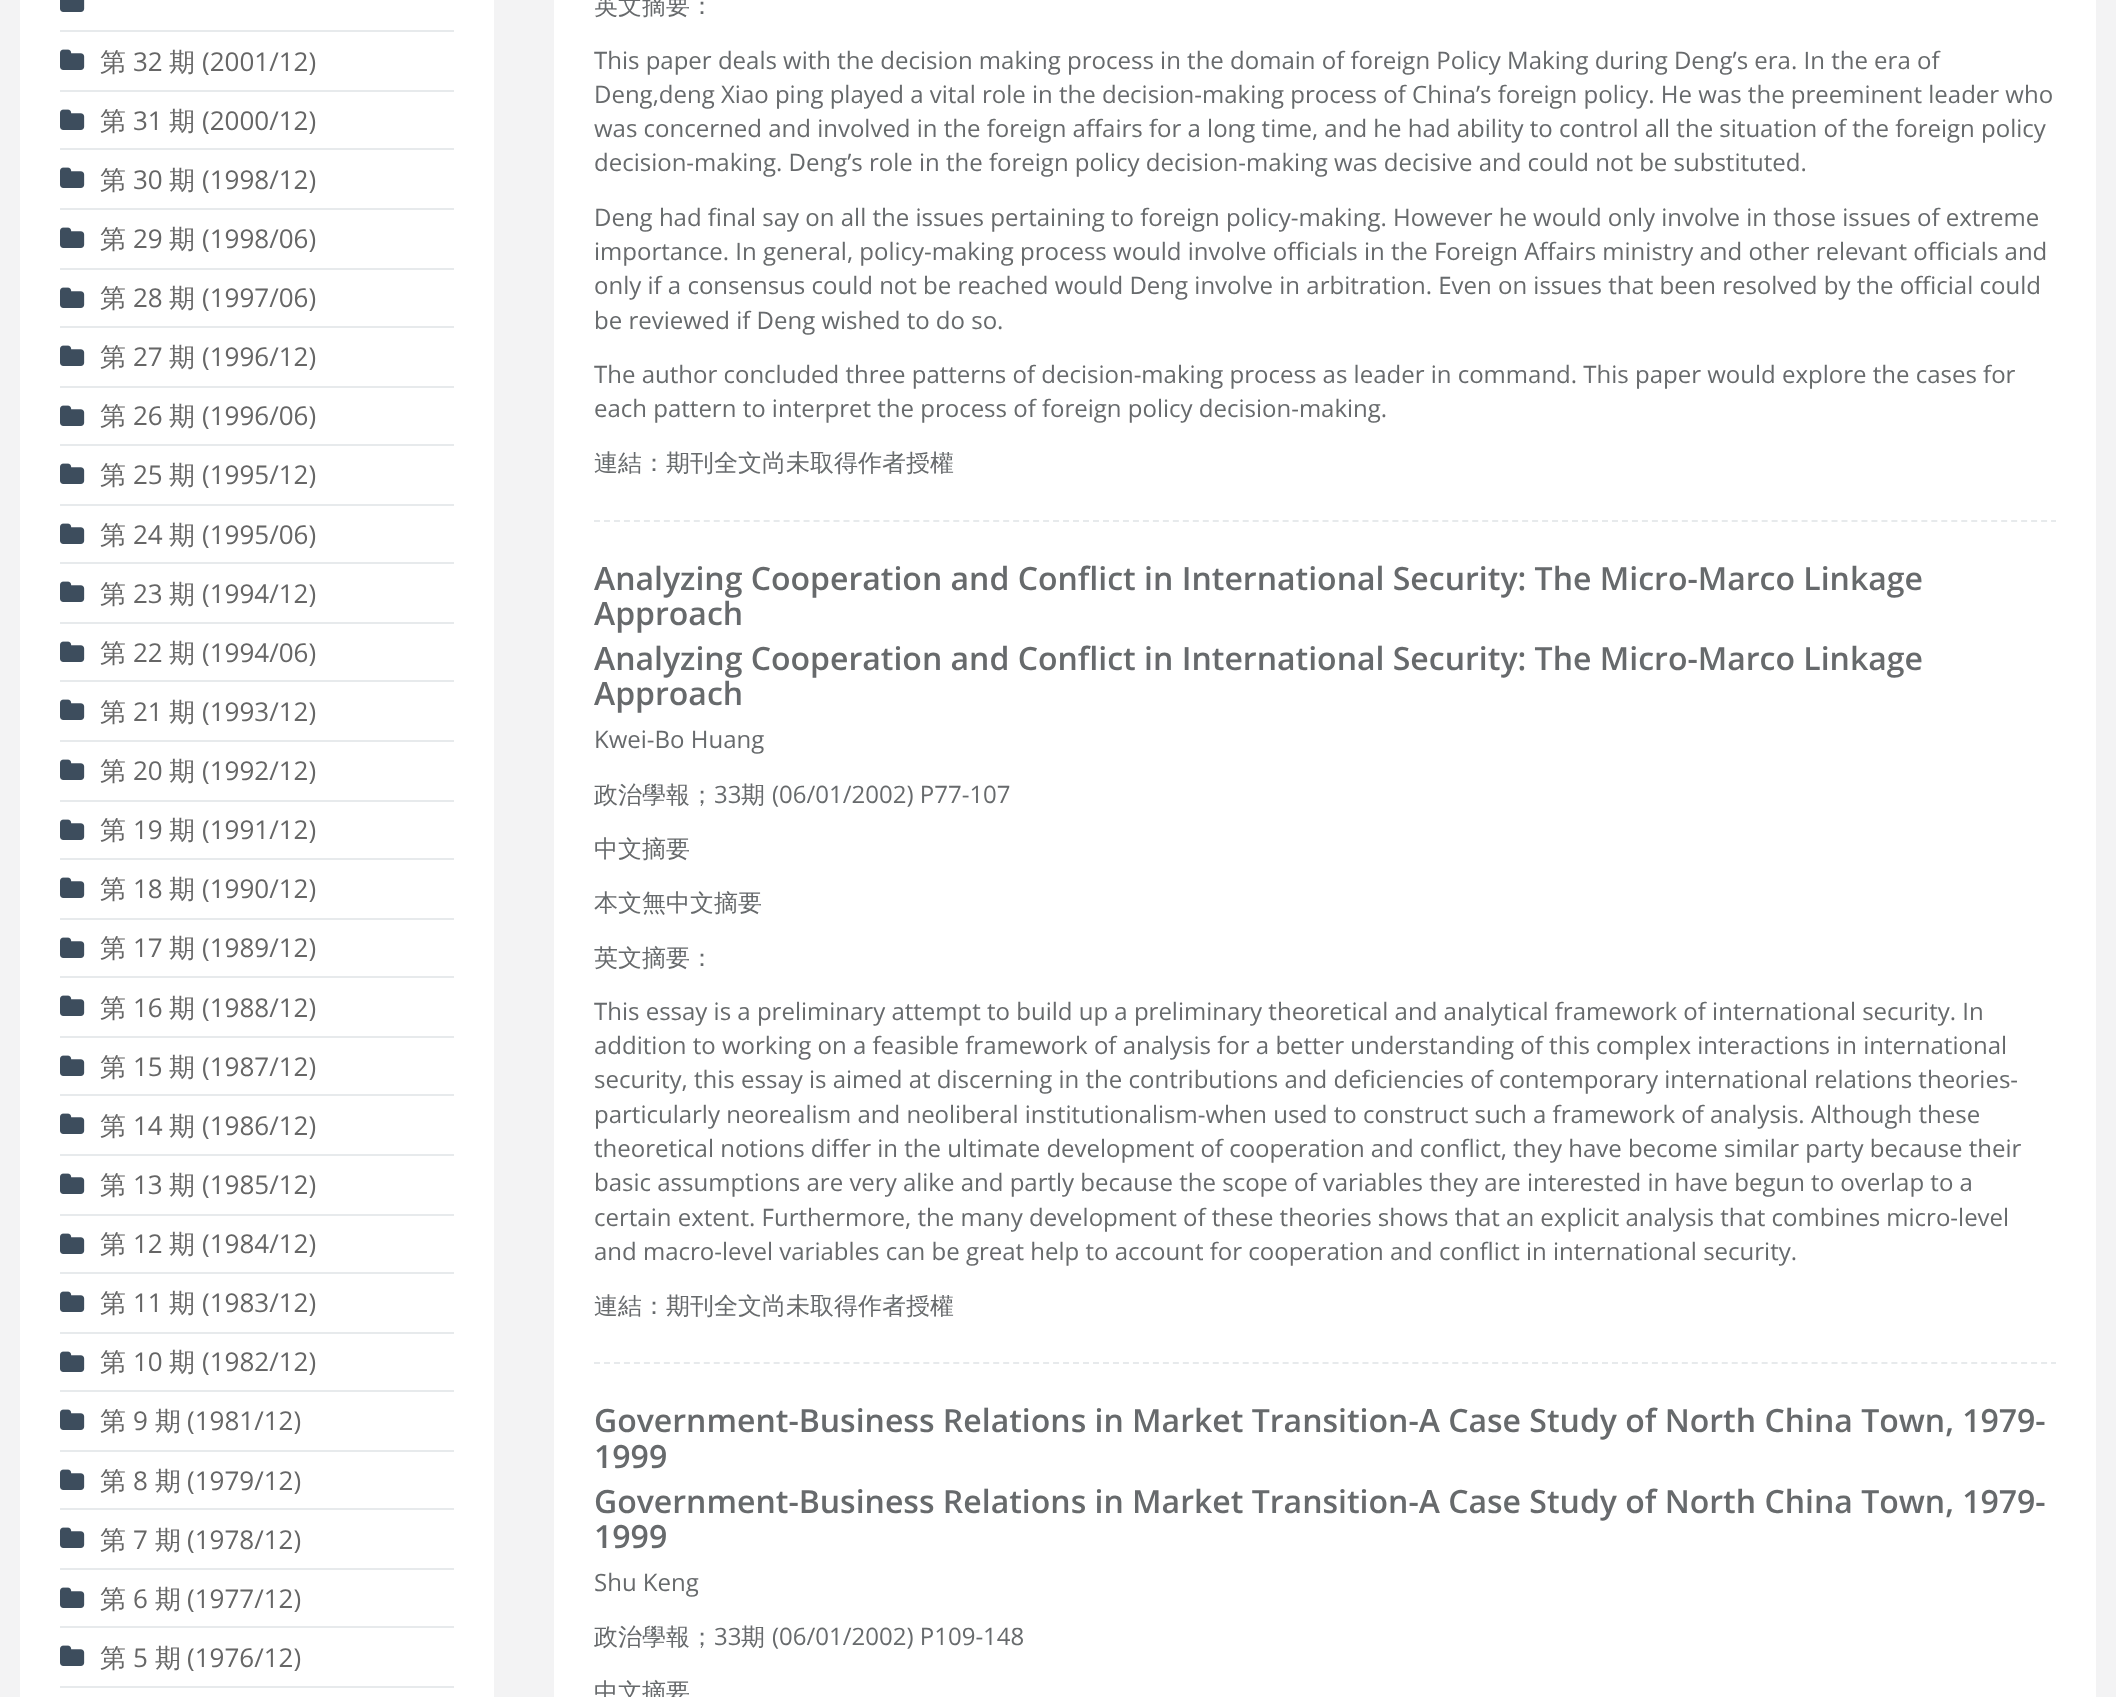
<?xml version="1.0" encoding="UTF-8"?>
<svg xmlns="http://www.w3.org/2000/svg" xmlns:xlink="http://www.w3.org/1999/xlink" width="2116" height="1697">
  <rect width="100%" height="100%" fill="#f3f3f4" />
  <rect x="20" width="474" height="1697" fill="#ffffff" />
  <rect x="60" y="30" width="394" height="2" fill="#e7eaec" />
  <image x="60" y="0" width="25" height="12" xlink:href="image1.png" />
  <rect x="60" y="90" width="394" height="2" fill="#e7eaec" />
  <image x="60" y="49" width="25" height="21" xlink:href="image2.png" />
  <rect x="60" y="148" width="394" height="2" fill="#e7eaec" />
  <image x="60" y="109" width="25" height="21" xlink:href="image2.png" />
  <rect x="60" y="208" width="394" height="2" fill="#e7eaec" />
  <image x="60" y="167" width="25" height="21" xlink:href="image2.png" />
  <rect x="60" y="268" width="394" height="2" fill="#e7eaec" />
  <image x="60" y="227" width="25" height="21" xlink:href="image2.png" />
  <rect x="60" y="326" width="394" height="2" fill="#e7eaec" />
  <image x="60" y="287" width="25" height="21" xlink:href="image2.png" />
  <rect x="60" y="386" width="394" height="2" fill="#e7eaec" />
  <image x="60" y="345" width="25" height="21" xlink:href="image2.png" />
  <rect x="60" y="444" width="394" height="2" fill="#e7eaec" />
  <image x="60" y="405" width="25" height="21" xlink:href="image2.png" />
  <rect x="60" y="504" width="394" height="2" fill="#e7eaec" />
  <image x="60" y="463" width="25" height="21" xlink:href="image2.png" />
  <rect x="60" y="562" width="394" height="2" fill="#e7eaec" />
  <image x="60" y="523" width="25" height="21" xlink:href="image2.png" />
  <rect x="60" y="622" width="394" height="2" fill="#e7eaec" />
  <image x="60" y="581" width="25" height="21" xlink:href="image2.png" />
  <rect x="60" y="680" width="394" height="2" fill="#e7eaec" />
  <image x="60" y="641" width="25" height="21" xlink:href="image2.png" />
  <rect x="60" y="740" width="394" height="2" fill="#e7eaec" />
  <image x="60" y="699" width="25" height="21" xlink:href="image2.png" />
  <rect x="60" y="800" width="394" height="2" fill="#e7eaec" />
  <image x="60" y="759" width="25" height="21" xlink:href="image2.png" />
  <rect x="60" y="858" width="394" height="2" fill="#e7eaec" />
  <image x="60" y="819" width="25" height="21" xlink:href="image2.png" />
  <rect x="60" y="918" width="394" height="2" fill="#e7eaec" />
  <image x="60" y="877" width="25" height="21" xlink:href="image2.png" />
  <rect x="60" y="976" width="394" height="2" fill="#e7eaec" />
  <image x="60" y="937" width="25" height="21" xlink:href="image2.png" />
  <rect x="60" y="1036" width="394" height="2" fill="#e7eaec" />
  <image x="60" y="995" width="25" height="21" xlink:href="image2.png" />
  <rect x="60" y="1094" width="394" height="2" fill="#e7eaec" />
  <image x="60" y="1055" width="25" height="21" xlink:href="image2.png" />
  <rect x="60" y="1154" width="394" height="2" fill="#e7eaec" />
  <image x="60" y="1113" width="25" height="21" xlink:href="image2.png" />
  <rect x="60" y="1214" width="394" height="2" fill="#e7eaec" />
  <image x="60" y="1173" width="25" height="21" xlink:href="image2.png" />
  <rect x="60" y="1272" width="394" height="2" fill="#e7eaec" />
  <image x="60" y="1233" width="25" height="21" xlink:href="image2.png" />
  <rect x="60" y="1332" width="394" height="2" fill="#e7eaec" />
  <image x="60" y="1291" width="25" height="21" xlink:href="image2.png" />
  <rect x="60" y="1390" width="394" height="2" fill="#e7eaec" />
  <image x="60" y="1351" width="25" height="21" xlink:href="image2.png" />
  <rect x="60" y="1450" width="394" height="2" fill="#e7eaec" />
  <image x="60" y="1409" width="25" height="21" xlink:href="image2.png" />
  <rect x="60" y="1508" width="394" height="2" fill="#e7eaec" />
  <image x="60" y="1469" width="25" height="21" xlink:href="image2.png" />
  <rect x="60" y="1568" width="394" height="2" fill="#e7eaec" />
  <image x="60" y="1527" width="25" height="21" xlink:href="image2.png" />
  <rect x="60" y="1626" width="394" height="2" fill="#e7eaec" />
  <image x="60" y="1587" width="25" height="21" xlink:href="image2.png" />
  <rect x="60" y="1686" width="394" height="2" fill="#e7eaec" />
  <image x="60" y="1645" width="25" height="21" xlink:href="image2.png" />
  <rect x="554" width="1542" height="1697" fill="#ffffff" />
  <path d="M 594 521 h 1462" fill="none" stroke="#e7eaec" stroke-width="2" stroke-dasharray="6 3.98" />
  <path d="M 594 1363 h 1462" fill="none" stroke="#e7eaec" stroke-width="2" stroke-dasharray="6 3.98" />
  <text x="100" y="71" style="font-family: WenQuanYi Zen Hei; font-size: 26px; font-weight: 500; fill: #666666">第</text>
  <text x="133" y="71" style="font-family: Open Sans; font-size: 26px; fill: #666666">32</text>
  <text x="169" y="71" style="font-family: WenQuanYi Zen Hei; font-size: 26px; font-weight: 500; fill: #666666">期</text>
  <text x="202" y="71" style="font-family: Open Sans; font-size: 26px; fill: #666666">(2001/12)</text>
  <text x="100" y="130" style="font-family: WenQuanYi Zen Hei; font-size: 26px; font-weight: 500; fill: #666666">第</text>
  <text x="133" y="130" style="font-family: Open Sans; font-size: 26px; fill: #666666">31</text>
  <text x="169" y="130" style="font-family: WenQuanYi Zen Hei; font-size: 26px; font-weight: 500; fill: #666666">期</text>
  <text x="202" y="130" style="font-family: Open Sans; font-size: 26px; fill: #666666">(2000/12)</text>
  <text x="100" y="189" style="font-family: WenQuanYi Zen Hei; font-size: 26px; font-weight: 500; fill: #666666">第</text>
  <text x="133" y="189" style="font-family: Open Sans; font-size: 26px; fill: #666666">30</text>
  <text x="169" y="189" style="font-family: WenQuanYi Zen Hei; font-size: 26px; font-weight: 500; fill: #666666">期</text>
  <text x="202" y="189" style="font-family: Open Sans; font-size: 26px; fill: #666666">(1998/12)</text>
  <text x="100" y="248" style="font-family: WenQuanYi Zen Hei; font-size: 26px; font-weight: 500; fill: #666666">第</text>
  <text x="133" y="248" style="font-family: Open Sans; font-size: 26px; fill: #666666">29</text>
  <text x="169" y="248" style="font-family: WenQuanYi Zen Hei; font-size: 26px; font-weight: 500; fill: #666666">期</text>
  <text x="202" y="248" style="font-family: Open Sans; font-size: 26px; fill: #666666">(1998/06)</text>
  <text x="100" y="307" style="font-family: WenQuanYi Zen Hei; font-size: 26px; font-weight: 500; fill: #666666">第</text>
  <text x="133" y="307" style="font-family: Open Sans; font-size: 26px; fill: #666666">28</text>
  <text x="169" y="307" style="font-family: WenQuanYi Zen Hei; font-size: 26px; font-weight: 500; fill: #666666">期</text>
  <text x="202" y="307" style="font-family: Open Sans; font-size: 26px; fill: #666666">(1997/06)</text>
  <text x="100" y="366" style="font-family: WenQuanYi Zen Hei; font-size: 26px; font-weight: 500; fill: #666666">第</text>
  <text x="133" y="366" style="font-family: Open Sans; font-size: 26px; fill: #666666">27</text>
  <text x="169" y="366" style="font-family: WenQuanYi Zen Hei; font-size: 26px; font-weight: 500; fill: #666666">期</text>
  <text x="202" y="366" style="font-family: Open Sans; font-size: 26px; fill: #666666">(1996/12)</text>
  <text x="100" y="425" style="font-family: WenQuanYi Zen Hei; font-size: 26px; font-weight: 500; fill: #666666">第</text>
  <text x="133" y="425" style="font-family: Open Sans; font-size: 26px; fill: #666666">26</text>
  <text x="169" y="425" style="font-family: WenQuanYi Zen Hei; font-size: 26px; font-weight: 500; fill: #666666">期</text>
  <text x="202" y="425" style="font-family: Open Sans; font-size: 26px; fill: #666666">(1996/06)</text>
  <text x="100" y="484" style="font-family: WenQuanYi Zen Hei; font-size: 26px; font-weight: 500; fill: #666666">第</text>
  <text x="133" y="484" style="font-family: Open Sans; font-size: 26px; fill: #666666">25</text>
  <text x="169" y="484" style="font-family: WenQuanYi Zen Hei; font-size: 26px; font-weight: 500; fill: #666666">期</text>
  <text x="202" y="484" style="font-family: Open Sans; font-size: 26px; fill: #666666">(1995/12)</text>
  <text x="100" y="544" style="font-family: WenQuanYi Zen Hei; font-size: 26px; font-weight: 500; fill: #666666">第</text>
  <text x="133" y="544" style="font-family: Open Sans; font-size: 26px; fill: #666666">24</text>
  <text x="169" y="544" style="font-family: WenQuanYi Zen Hei; font-size: 26px; font-weight: 500; fill: #666666">期</text>
  <text x="202" y="544" style="font-family: Open Sans; font-size: 26px; fill: #666666">(1995/06)</text>
  <text x="100" y="603" style="font-family: WenQuanYi Zen Hei; font-size: 26px; font-weight: 500; fill: #666666">第</text>
  <text x="133" y="603" style="font-family: Open Sans; font-size: 26px; fill: #666666">23</text>
  <text x="169" y="603" style="font-family: WenQuanYi Zen Hei; font-size: 26px; font-weight: 500; fill: #666666">期</text>
  <text x="202" y="603" style="font-family: Open Sans; font-size: 26px; fill: #666666">(1994/12)</text>
  <text x="100" y="662" style="font-family: WenQuanYi Zen Hei; font-size: 26px; font-weight: 500; fill: #666666">第</text>
  <text x="133" y="662" style="font-family: Open Sans; font-size: 26px; fill: #666666">22</text>
  <text x="169" y="662" style="font-family: WenQuanYi Zen Hei; font-size: 26px; font-weight: 500; fill: #666666">期</text>
  <text x="202" y="662" style="font-family: Open Sans; font-size: 26px; fill: #666666">(1994/06)</text>
  <text x="100" y="721" style="font-family: WenQuanYi Zen Hei; font-size: 26px; font-weight: 500; fill: #666666">第</text>
  <text x="133" y="721" style="font-family: Open Sans; font-size: 26px; fill: #666666">21</text>
  <text x="169" y="721" style="font-family: WenQuanYi Zen Hei; font-size: 26px; font-weight: 500; fill: #666666">期</text>
  <text x="202" y="721" style="font-family: Open Sans; font-size: 26px; fill: #666666">(1993/12)</text>
  <text x="100" y="780" style="font-family: WenQuanYi Zen Hei; font-size: 26px; font-weight: 500; fill: #666666">第</text>
  <text x="133" y="780" style="font-family: Open Sans; font-size: 26px; fill: #666666">20</text>
  <text x="169" y="780" style="font-family: WenQuanYi Zen Hei; font-size: 26px; font-weight: 500; fill: #666666">期</text>
  <text x="202" y="780" style="font-family: Open Sans; font-size: 26px; fill: #666666">(1992/12)</text>
  <text x="100" y="839" style="font-family: WenQuanYi Zen Hei; font-size: 26px; font-weight: 500; fill: #666666">第</text>
  <text x="133" y="839" style="font-family: Open Sans; font-size: 26px; fill: #666666">19</text>
  <text x="169" y="839" style="font-family: WenQuanYi Zen Hei; font-size: 26px; font-weight: 500; fill: #666666">期</text>
  <text x="202" y="839" style="font-family: Open Sans; font-size: 26px; fill: #666666">(1991/12)</text>
  <text x="100" y="898" style="font-family: WenQuanYi Zen Hei; font-size: 26px; font-weight: 500; fill: #666666">第</text>
  <text x="133" y="898" style="font-family: Open Sans; font-size: 26px; fill: #666666">18</text>
  <text x="169" y="898" style="font-family: WenQuanYi Zen Hei; font-size: 26px; font-weight: 500; fill: #666666">期</text>
  <text x="202" y="898" style="font-family: Open Sans; font-size: 26px; fill: #666666">(1990/12)</text>
  <text x="100" y="957" style="font-family: WenQuanYi Zen Hei; font-size: 26px; font-weight: 500; fill: #666666">第</text>
  <text x="133" y="957" style="font-family: Open Sans; font-size: 26px; fill: #666666">17</text>
  <text x="169" y="957" style="font-family: WenQuanYi Zen Hei; font-size: 26px; font-weight: 500; fill: #666666">期</text>
  <text x="202" y="957" style="font-family: Open Sans; font-size: 26px; fill: #666666">(1989/12)</text>
  <text x="100" y="1017" style="font-family: WenQuanYi Zen Hei; font-size: 26px; font-weight: 500; fill: #666666">第</text>
  <text x="133" y="1017" style="font-family: Open Sans; font-size: 26px; fill: #666666">16</text>
  <text x="169" y="1017" style="font-family: WenQuanYi Zen Hei; font-size: 26px; font-weight: 500; fill: #666666">期</text>
  <text x="202" y="1017" style="font-family: Open Sans; font-size: 26px; fill: #666666">(1988/12)</text>
  <text x="100" y="1076" style="font-family: WenQuanYi Zen Hei; font-size: 26px; font-weight: 500; fill: #666666">第</text>
  <text x="133" y="1076" style="font-family: Open Sans; font-size: 26px; fill: #666666">15</text>
  <text x="169" y="1076" style="font-family: WenQuanYi Zen Hei; font-size: 26px; font-weight: 500; fill: #666666">期</text>
  <text x="202" y="1076" style="font-family: Open Sans; font-size: 26px; fill: #666666">(1987/12)</text>
  <text x="100" y="1135" style="font-family: WenQuanYi Zen Hei; font-size: 26px; font-weight: 500; fill: #666666">第</text>
  <text x="133" y="1135" style="font-family: Open Sans; font-size: 26px; fill: #666666">14</text>
  <text x="169" y="1135" style="font-family: WenQuanYi Zen Hei; font-size: 26px; font-weight: 500; fill: #666666">期</text>
  <text x="202" y="1135" style="font-family: Open Sans; font-size: 26px; fill: #666666">(1986/12)</text>
  <text x="100" y="1194" style="font-family: WenQuanYi Zen Hei; font-size: 26px; font-weight: 500; fill: #666666">第</text>
  <text x="133" y="1194" style="font-family: Open Sans; font-size: 26px; fill: #666666">13</text>
  <text x="169" y="1194" style="font-family: WenQuanYi Zen Hei; font-size: 26px; font-weight: 500; fill: #666666">期</text>
  <text x="202" y="1194" style="font-family: Open Sans; font-size: 26px; fill: #666666">(1985/12)</text>
  <text x="100" y="1253" style="font-family: WenQuanYi Zen Hei; font-size: 26px; font-weight: 500; fill: #666666">第</text>
  <text x="133" y="1253" style="font-family: Open Sans; font-size: 26px; fill: #666666">12</text>
  <text x="169" y="1253" style="font-family: WenQuanYi Zen Hei; font-size: 26px; font-weight: 500; fill: #666666">期</text>
  <text x="202" y="1253" style="font-family: Open Sans; font-size: 26px; fill: #666666">(1984/12)</text>
  <text x="100" y="1312" style="font-family: WenQuanYi Zen Hei; font-size: 26px; font-weight: 500; fill: #666666">第</text>
  <text x="133" y="1312" style="font-family: Open Sans; font-size: 26px; fill: #666666">11</text>
  <text x="169" y="1312" style="font-family: WenQuanYi Zen Hei; font-size: 26px; font-weight: 500; fill: #666666">期</text>
  <text x="202" y="1312" style="font-family: Open Sans; font-size: 26px; fill: #666666">(1983/12)</text>
  <text x="100" y="1371" style="font-family: WenQuanYi Zen Hei; font-size: 26px; font-weight: 500; fill: #666666">第</text>
  <text x="133" y="1371" style="font-family: Open Sans; font-size: 26px; fill: #666666">10</text>
  <text x="169" y="1371" style="font-family: WenQuanYi Zen Hei; font-size: 26px; font-weight: 500; fill: #666666">期</text>
  <text x="202" y="1371" style="font-family: Open Sans; font-size: 26px; fill: #666666">(1982/12)</text>
  <text x="100" y="1430" style="font-family: WenQuanYi Zen Hei; font-size: 26px; font-weight: 500; fill: #666666">第</text>
  <text x="133" y="1430" style="font-family: Open Sans; font-size: 26px; fill: #666666">9</text>
  <text x="155" y="1430" style="font-family: WenQuanYi Zen Hei; font-size: 26px; font-weight: 500; fill: #666666">期</text>
  <text x="187" y="1430" style="font-family: Open Sans; font-size: 26px; fill: #666666">(1981/12)</text>
  <text x="100" y="1490" style="font-family: WenQuanYi Zen Hei; font-size: 26px; font-weight: 500; fill: #666666">第</text>
  <text x="133" y="1490" style="font-family: Open Sans; font-size: 26px; fill: #666666">8</text>
  <text x="155" y="1490" style="font-family: WenQuanYi Zen Hei; font-size: 26px; font-weight: 500; fill: #666666">期</text>
  <text x="187" y="1490" style="font-family: Open Sans; font-size: 26px; fill: #666666">(1979/12)</text>
  <text x="100" y="1549" style="font-family: WenQuanYi Zen Hei; font-size: 26px; font-weight: 500; fill: #666666">第</text>
  <text x="133" y="1549" style="font-family: Open Sans; font-size: 26px; fill: #666666">7</text>
  <text x="155" y="1549" style="font-family: WenQuanYi Zen Hei; font-size: 26px; font-weight: 500; fill: #666666">期</text>
  <text x="187" y="1549" style="font-family: Open Sans; font-size: 26px; fill: #666666">(1978/12)</text>
  <text x="100" y="1608" style="font-family: WenQuanYi Zen Hei; font-size: 26px; font-weight: 500; fill: #666666">第</text>
  <text x="133" y="1608" style="font-family: Open Sans; font-size: 26px; fill: #666666">6</text>
  <text x="155" y="1608" style="font-family: WenQuanYi Zen Hei; font-size: 26px; font-weight: 500; fill: #666666">期</text>
  <text x="187" y="1608" style="font-family: Open Sans; font-size: 26px; fill: #666666">(1977/12)</text>
  <text x="100" y="1667" style="font-family: WenQuanYi Zen Hei; font-size: 26px; font-weight: 500; fill: #666666">第</text>
  <text x="133" y="1667" style="font-family: Open Sans; font-size: 26px; fill: #666666">5</text>
  <text x="155" y="1667" style="font-family: WenQuanYi Zen Hei; font-size: 26px; font-weight: 500; fill: #666666">期</text>
  <text x="187" y="1667" style="font-family: Open Sans; font-size: 26px; fill: #666666">(1976/12)</text>
  <text x="594" y="14" style="font-family: WenQuanYi Zen Hei; font-size: 24px; font-weight: 500; fill: #676a6c">英文摘要：</text>
  <text x="594" y="69" style="font-family: Open Sans; font-size: 24px; fill: #676a6c">This paper deals with the decision making process in the domain of foreign Policy Making during Deng’s era. In the era of</text>
  <text x="594" y="103" style="font-family: Open Sans; font-size: 24px; fill: #676a6c">Deng,deng Xiao ping played a vital role in the decision-making process of China’s foreign policy. He was the preeminent leader who</text>
  <text x="594" y="137" style="font-family: Open Sans; font-size: 24px; fill: #676a6c">was concerned and involved in the foreign affairs for a long time, and he had ability to control all the situation of the foreign policy</text>
  <text x="594" y="171" style="font-family: Open Sans; font-size: 24px; fill: #676a6c">decision-making. Deng’s role in the foreign policy decision-making was decisive and could not be substituted.</text>
  <text x="594" y="226" style="font-family: Open Sans; font-size: 24px; fill: #676a6c">Deng had final say on all the issues pertaining to foreign policy-making. However he would only involve in those issues of extreme</text>
  <text x="594" y="260" style="font-family: Open Sans; font-size: 24px; fill: #676a6c">importance. In general, policy-making process would involve officials in the Foreign Affairs ministry and other relevant officials and</text>
  <text x="594" y="294" style="font-family: Open Sans; font-size: 24px; fill: #676a6c">only if a consensus could not be reached would Deng involve in arbitration. Even on issues that been resolved by the official could</text>
  <text x="594" y="329" style="font-family: Open Sans; font-size: 24px; fill: #676a6c">be reviewed if Deng wished to do so.</text>
  <text x="594" y="383" style="font-family: Open Sans; font-size: 24px; fill: #676a6c">The author concluded three patterns of decision-making process as leader in command. This paper would explore the cases for</text>
  <text x="594" y="417" style="font-family: Open Sans; font-size: 24px; fill: #676a6c">each pattern to interpret the process of foreign policy decision-making.</text>
  <text x="594" y="471" style="font-family: WenQuanYi Zen Hei; font-size: 24px; font-weight: 500; fill: #676a6c">連結：期刊全文尚未取得作者授權</text>
  <text x="594" y="590" style="font-family: Open Sans; font-size: 32px; font-weight: 600; fill: #676a6c">Analyzing Cooperation and Conflict in International Security: The Micro-Marco Linkage</text>
  <text x="594" y="625" style="font-family: Open Sans; font-size: 32px; font-weight: 600; fill: #676a6c">Approach</text>
  <text x="594" y="670" style="font-family: Open Sans; font-size: 32px; font-weight: 600; fill: #676a6c">Analyzing Cooperation and Conflict in International Security: The Micro-Marco Linkage</text>
  <text x="594" y="705" style="font-family: Open Sans; font-size: 32px; font-weight: 600; fill: #676a6c">Approach</text>
  <text x="594" y="748" style="font-family: Open Sans; font-size: 24px; fill: #676a6c">Kwei-Bo Huang</text>
  <text x="594" y="803" style="font-family: WenQuanYi Zen Hei; font-size: 24px; font-weight: 500; fill: #676a6c">政治學報；</text>
  <text x="714" y="803" style="font-family: Open Sans; font-size: 24px; fill: #676a6c">33</text>
  <text x="741" y="803" style="font-family: WenQuanYi Zen Hei; font-size: 24px; font-weight: 500; fill: #676a6c">期</text>
  <text x="772" y="803" style="font-family: Open Sans; font-size: 24px; fill: #676a6c">(06/01/2002) P77-107</text>
  <text x="594" y="857" style="font-family: WenQuanYi Zen Hei; font-size: 24px; font-weight: 500; fill: #676a6c">中文摘要</text>
  <text x="594" y="911" style="font-family: WenQuanYi Zen Hei; font-size: 24px; font-weight: 500; fill: #676a6c">本文無中文摘要</text>
  <text x="594" y="966" style="font-family: WenQuanYi Zen Hei; font-size: 24px; font-weight: 500; fill: #676a6c">英文摘要：</text>
  <text x="594" y="1020" style="font-family: Open Sans; font-size: 24px; fill: #676a6c">This essay is a preliminary attempt to build up a preliminary theoretical and analytical framework of international security. In</text>
  <text x="594" y="1054" style="font-family: Open Sans; font-size: 24px; fill: #676a6c">addition to working on a feasible framework of analysis for a better understanding of this complex interactions in international</text>
  <text x="594" y="1088" style="font-family: Open Sans; font-size: 24px; fill: #676a6c">security, this essay is aimed at discerning in the contributions and deficiencies of contemporary international relations theories-</text>
  <text x="594" y="1123" style="font-family: Open Sans; font-size: 24px; fill: #676a6c">particularly neorealism and neoliberal institutionalism-when used to construct such a framework of analysis. Although these</text>
  <text x="594" y="1157" style="font-family: Open Sans; font-size: 24px; fill: #676a6c">theoretical notions differ in the ultimate development of cooperation and conflict, they have become similar party because their</text>
  <text x="594" y="1191" style="font-family: Open Sans; font-size: 24px; fill: #676a6c">basic assumptions are very alike and partly because the scope of variables they are interested in have begun to overlap to a</text>
  <text x="594" y="1226" style="font-family: Open Sans; font-size: 24px; fill: #676a6c">certain extent. Furthermore, the many development of these theories shows that an explicit analysis that combines micro-level</text>
  <text x="594" y="1260" style="font-family: Open Sans; font-size: 24px; fill: #676a6c">and macro-level variables can be great help to account for cooperation and conflict in international security.</text>
  <text x="594" y="1314" style="font-family: WenQuanYi Zen Hei; font-size: 24px; font-weight: 500; fill: #676a6c">連結：期刊全文尚未取得作者授權</text>
  <text x="594" y="1432" style="font-family: Open Sans; font-size: 32px; font-weight: 600; fill: #676a6c">Government-Business Relations in Market Transition-A Case Study of North China Town, 1979-</text>
  <text x="594" y="1468" style="font-family: Open Sans; font-size: 32px; font-weight: 600; fill: #676a6c">1999</text>
  <text x="594" y="1513" style="font-family: Open Sans; font-size: 32px; font-weight: 600; fill: #676a6c">Government-Business Relations in Market Transition-A Case Study of North China Town, 1979-</text>
  <text x="594" y="1548" style="font-family: Open Sans; font-size: 32px; font-weight: 600; fill: #676a6c">1999</text>
  <text x="594" y="1591" style="font-family: Open Sans; font-size: 24px; fill: #676a6c">Shu Keng</text>
  <text x="594" y="1645" style="font-family: WenQuanYi Zen Hei; font-size: 24px; font-weight: 500; fill: #676a6c">政治學報；</text>
  <text x="714" y="1645" style="font-family: Open Sans; font-size: 24px; fill: #676a6c">33</text>
  <text x="741" y="1645" style="font-family: WenQuanYi Zen Hei; font-size: 24px; font-weight: 500; fill: #676a6c">期</text>
  <text x="772" y="1645" style="font-family: Open Sans; font-size: 24px; fill: #676a6c">(06/01/2002) P109-148</text>
  <text x="594" y="1700" style="font-family: WenQuanYi Zen Hei; font-size: 24px; font-weight: 500; fill: #676a6c">中文摘要</text>
</svg>
